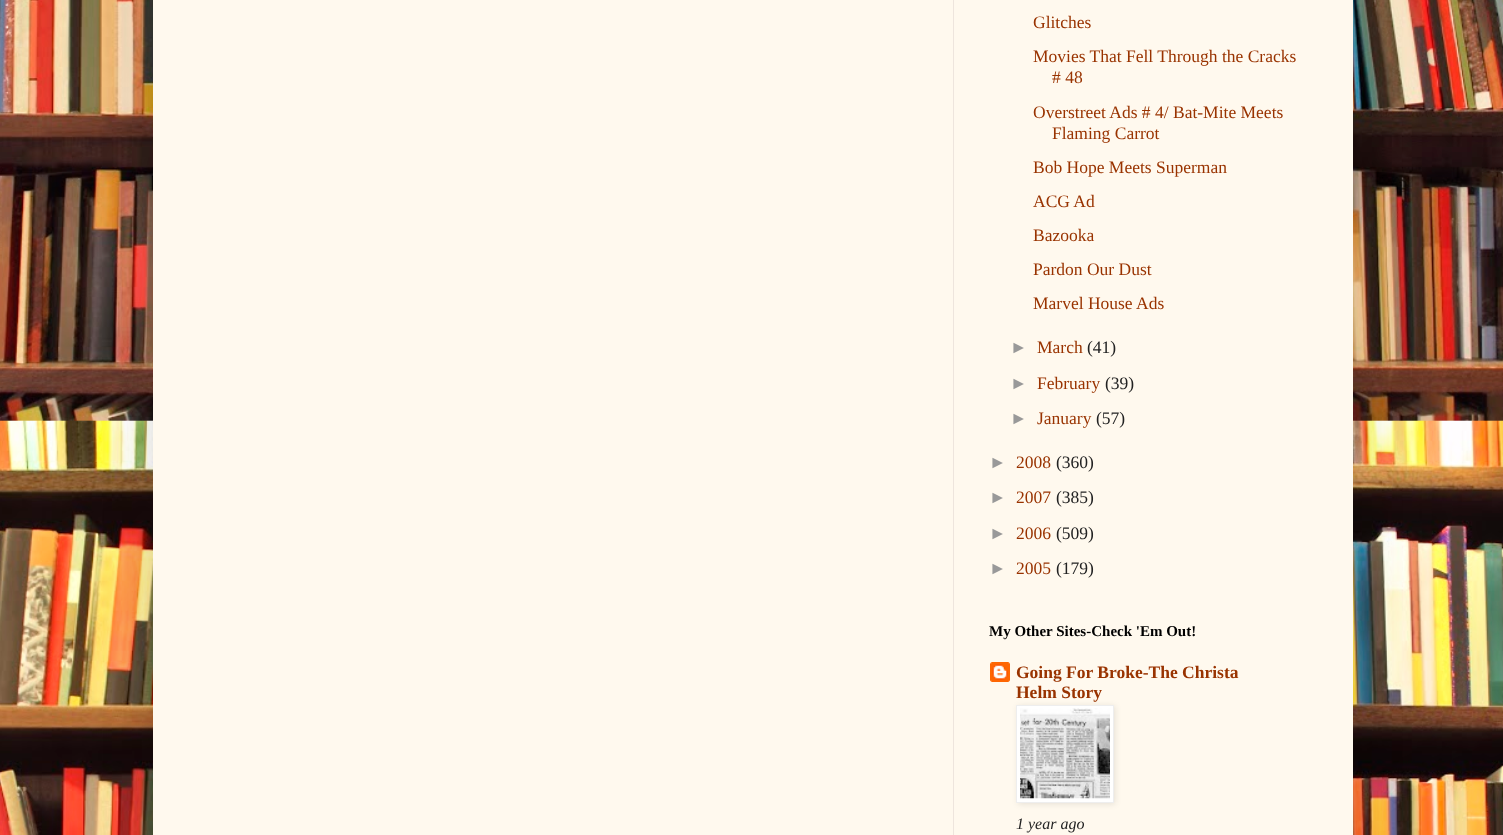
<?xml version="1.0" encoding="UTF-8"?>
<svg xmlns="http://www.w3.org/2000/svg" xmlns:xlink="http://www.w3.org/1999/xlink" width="1503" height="835">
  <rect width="100%" height="100%" fill="#ffffff" />
  <image x="0" y="0" width="1503" height="835" xlink:href="image1.png" />
  <rect x="153" y="-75" width="1200" height="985" fill="#000000" fill-opacity="0.15" filter="blur(25px)" />
  <rect x="153" width="1200" height="835" fill="#fff9ee" />
  <rect x="953" width="1" height="835" fill="#eee5dd" />
  <image x="990" y="662" width="20" height="20" xlink:href="image2.png" />
  <rect x="1018" y="706" width="97" height="98" fill="#000000" fill-opacity="0.1" filter="blur(3px)" />
  <rect x="1016.5" y="705.5" width="97" height="97" fill="#ffffff" stroke="#eeeeee" />
  <image x="1020" y="708" width="90" height="91" xlink:href="image3.png" />
  <text x="1033" y="28" style="font-family: Liberation Serif; font-size: 17.5px; fill: #993300">Glitches</text>
  <text x="1033" y="62" style="font-family: Liberation Serif; font-size: 17.5px; fill: #993300">Movies That Fell Through the Cracks</text>
  <text x="1052" y="83" style="font-family: Liberation Serif; font-size: 17.5px; fill: #993300"># 48</text>
  <text x="1033" y="118" style="font-family: Liberation Serif; font-size: 17.5px; fill: #993300">Overstreet Ads # 4/ Bat-Mite Meets</text>
  <text x="1052" y="139" style="font-family: Liberation Serif; font-size: 17.5px; fill: #993300">Flaming Carrot</text>
  <text x="1033" y="173" style="font-family: Liberation Serif; font-size: 17.5px; fill: #993300">Bob Hope Meets Superman</text>
  <text x="1033" y="207" style="font-family: Liberation Serif; font-size: 17.5px; fill: #993300">ACG Ad</text>
  <text x="1033" y="241" style="font-family: Liberation Serif; font-size: 17.5px; fill: #993300">Bazooka</text>
  <text x="1033" y="275" style="font-family: Liberation Serif; font-size: 17.5px; fill: #993300">Pardon Our Dust</text>
  <text x="1033" y="309" style="font-family: Liberation Serif; font-size: 17.5px; fill: #993300">Marvel House Ads</text>
  <text x="1010" y="353" style="font-family: Liberation Sans; font-size: 17.5px; fill: #999999">►</text>
  <text x="1037" y="353" style="font-family: Liberation Serif; font-size: 17.5px; fill: #993300">March</text>
  <text x="1087" y="353" style="font-family: Liberation Serif; font-size: 17.5px; fill: #222222">(41)</text>
  <text x="1010" y="389" style="font-family: Liberation Sans; font-size: 17.5px; fill: #999999">►</text>
  <text x="1037" y="389" style="font-family: Liberation Serif; font-size: 17.5px; fill: #993300">February</text>
  <text x="1105" y="389" style="font-family: Liberation Serif; font-size: 17.5px; fill: #222222">(39)</text>
  <text x="1010" y="424" style="font-family: Liberation Sans; font-size: 17.5px; fill: #999999">►</text>
  <text x="1037" y="424" style="font-family: Liberation Serif; font-size: 17.5px; fill: #993300">January</text>
  <text x="1096" y="424" style="font-family: Liberation Serif; font-size: 17.5px; fill: #222222">(57)</text>
  <text x="989" y="468" style="font-family: Liberation Sans; font-size: 17.5px; fill: #999999">►</text>
  <text x="1016" y="468" style="font-family: Liberation Serif; font-size: 17.5px; fill: #993300">2008</text>
  <text x="1056" y="468" style="font-family: Liberation Serif; font-size: 17.5px; fill: #222222">(360)</text>
  <text x="989" y="503" style="font-family: Liberation Sans; font-size: 17.5px; fill: #999999">►</text>
  <text x="1016" y="503" style="font-family: Liberation Serif; font-size: 17.5px; fill: #993300">2007</text>
  <text x="1056" y="503" style="font-family: Liberation Serif; font-size: 17.5px; fill: #222222">(385)</text>
  <text x="989" y="539" style="font-family: Liberation Sans; font-size: 17.5px; fill: #999999">►</text>
  <text x="1016" y="539" style="font-family: Liberation Serif; font-size: 17.5px; fill: #993300">2006</text>
  <text x="1056" y="539" style="font-family: Liberation Serif; font-size: 17.5px; fill: #222222">(509)</text>
  <text x="989" y="574" style="font-family: Liberation Sans; font-size: 17.5px; fill: #999999">►</text>
  <text x="1016" y="574" style="font-family: Liberation Serif; font-size: 17.5px; fill: #993300">2005</text>
  <text x="1056" y="574" style="font-family: Liberation Serif; font-size: 17.5px; fill: #222222">(179)</text>
  <text x="989" y="636" style="font-family: Liberation Serif; font-size: 15px; font-weight: bold; fill: #000000">My Other Sites-Check 'Em Out!</text>
  <text x="1016" y="678" style="font-family: Liberation Serif; font-size: 17.5px; font-weight: bold; fill: #993300">Going For Broke-The Christa</text>
  <text x="1016" y="698" style="font-family: Liberation Serif; font-size: 17.5px; font-weight: bold; fill: #993300">Helm Story</text>
  <text x="1016" y="829" style="font-family: Liberation Serif; font-size: 16px; font-style: italic; fill: #222222">1 year ago</text>
</svg>
